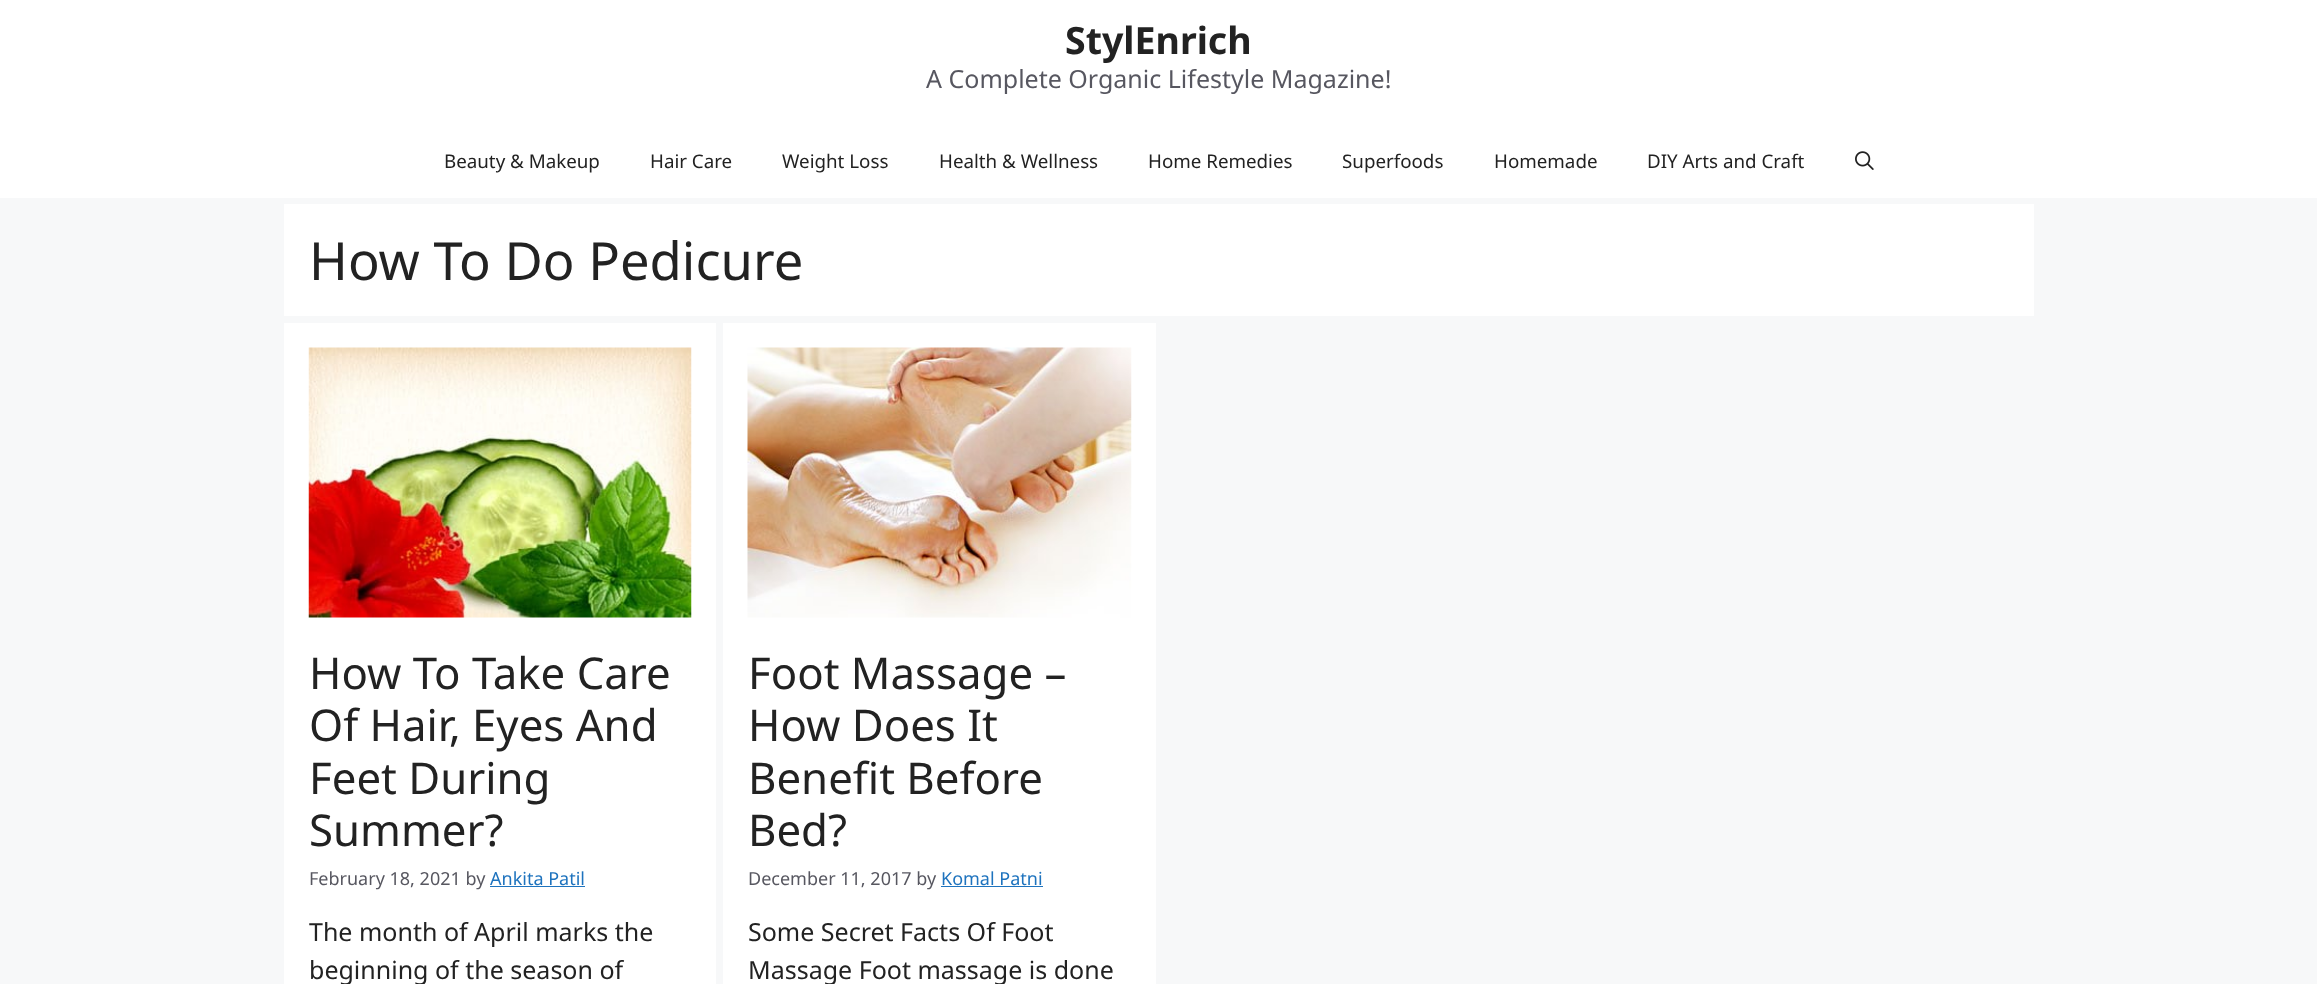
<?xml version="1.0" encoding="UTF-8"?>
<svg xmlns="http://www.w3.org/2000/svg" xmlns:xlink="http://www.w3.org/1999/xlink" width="2317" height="984">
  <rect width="100%" height="100%" fill="#f7f8f9" />
  <rect width="2317" height="198" fill="#ffffff" />
  <image x="1855" y="151" width="19" height="19" xlink:href="image1.png" />
  <rect x="284" y="204" width="1750" height="112" fill="#ffffff" />
  <rect x="284" y="323" width="432" height="661" fill="#ffffff" />
  <image x="308" y="347" width="384" height="271" xlink:href="image2.png" />
  <rect x="490" y="886" width="95" height="1" fill="#1e73be" />
  <rect x="723" y="323" width="433" height="661" fill="#ffffff" />
  <image x="747" y="347" width="385" height="271" xlink:href="image3.png" />
  <rect x="941" y="886" width="102" height="1" fill="#1e73be" />
  <text x="1065" y="54" style="font-family: Noto Sans; font-size: 37.5px; font-weight: bold; fill: #222222">StylEnrich</text>
  <text x="926" y="88" style="font-family: Noto Sans; font-size: 25px; fill: #575760">A Complete Organic Lifestyle Magazine!</text>
  <text x="444" y="168" style="font-family: Noto Sans; font-size: 18.75px; fill: #222222">Beauty &amp; Makeup</text>
  <text x="650" y="168" style="font-family: Noto Sans; font-size: 18.75px; fill: #222222">Hair Care</text>
  <text x="782" y="168" style="font-family: Noto Sans; font-size: 18.75px; fill: #222222">Weight Loss</text>
  <text x="939" y="168" style="font-family: Noto Sans; font-size: 18.75px; fill: #222222">Health &amp; Wellness</text>
  <text x="1148" y="168" style="font-family: Noto Sans; font-size: 18.75px; fill: #222222">Home Remedies</text>
  <text x="1342" y="168" style="font-family: Noto Sans; font-size: 18.75px; fill: #222222">Superfoods</text>
  <text x="1494" y="168" style="font-family: Noto Sans; font-size: 18.75px; fill: #222222">Homemade</text>
  <text x="1647" y="168" style="font-family: Noto Sans; font-size: 18.75px; fill: #222222">DIY Arts and Craft</text>
  <text x="309" y="280" style="font-family: Noto Sans; font-size: 52.5px; fill: #222222">How To Do Pedicure</text>
  <text x="309" y="689" style="font-family: Noto Sans; font-size: 43.75px; fill: #222222">How To Take Care</text>
  <text x="309" y="741" style="font-family: Noto Sans; font-size: 43.75px; fill: #222222">Of Hair, Eyes And</text>
  <text x="309" y="794" style="font-family: Noto Sans; font-size: 43.75px; fill: #222222">Feet During</text>
  <text x="309" y="846" style="font-family: Noto Sans; font-size: 43.75px; fill: #222222">Summer?</text>
  <text x="309" y="885" style="font-family: Noto Sans; font-size: 18px; fill: #575760">February 18, 2021 by</text>
  <text x="490" y="885" style="font-family: Noto Sans; font-size: 18px; fill: #1e73be">Ankita Patil</text>
  <text x="309" y="941" style="font-family: Noto Sans; font-size: 25px; fill: #222222">The month of April marks the</text>
  <text x="309" y="979" style="font-family: Noto Sans; font-size: 25px; fill: #222222">beginning of the season of</text>
  <text x="748" y="689" style="font-family: Noto Sans; font-size: 43.75px; fill: #222222">Foot Massage –</text>
  <text x="748" y="741" style="font-family: Noto Sans; font-size: 43.75px; fill: #222222">How Does It</text>
  <text x="748" y="794" style="font-family: Noto Sans; font-size: 43.75px; fill: #222222">Benefit Before</text>
  <text x="748" y="846" style="font-family: Noto Sans; font-size: 43.75px; fill: #222222">Bed?</text>
  <text x="748" y="885" style="font-family: Noto Sans; font-size: 18px; fill: #575760">December 11, 2017 by</text>
  <text x="941" y="885" style="font-family: Noto Sans; font-size: 18px; fill: #1e73be">Komal Patni</text>
  <text x="748" y="941" style="font-family: Noto Sans; font-size: 25px; fill: #222222">Some Secret Facts Of Foot</text>
  <text x="748" y="979" style="font-family: Noto Sans; font-size: 25px; fill: #222222">Massage Foot massage is done</text>
</svg>
